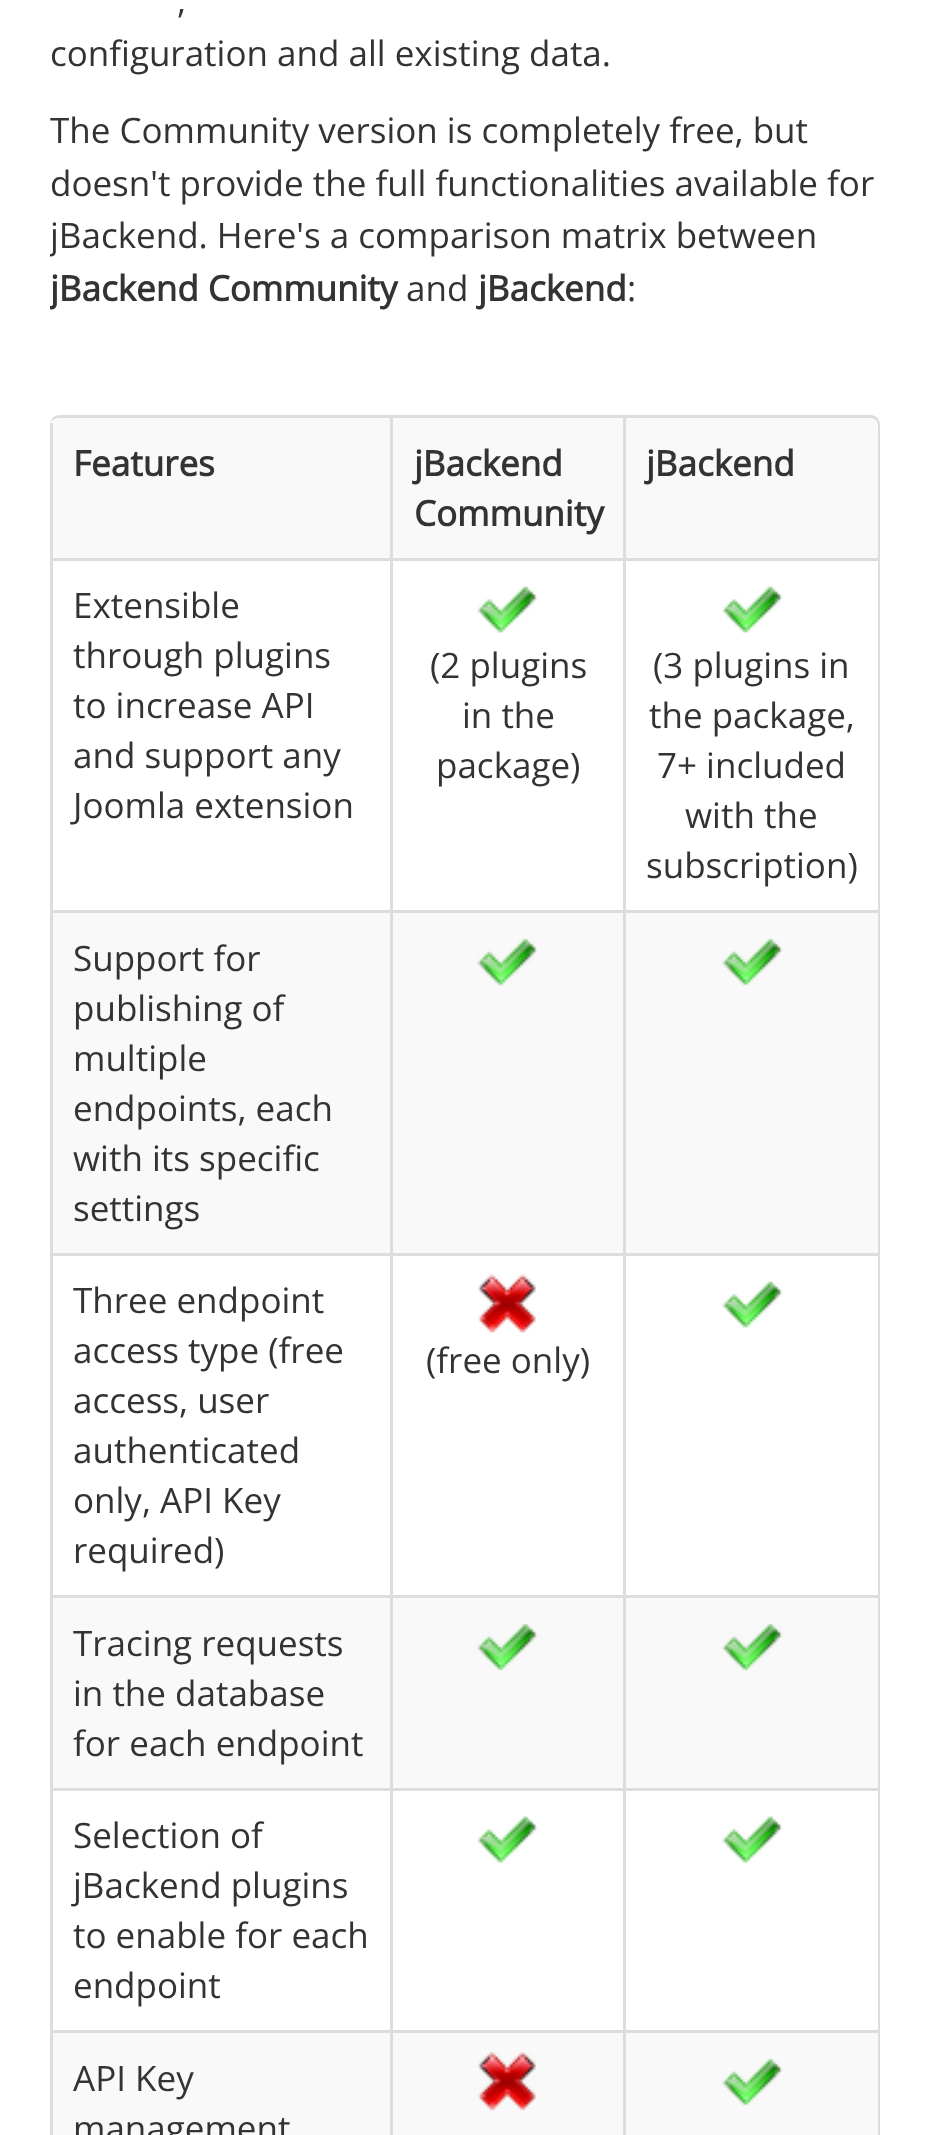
<?xml version="1.0" encoding="UTF-8"?>
<svg xmlns="http://www.w3.org/2000/svg" xmlns:xlink="http://www.w3.org/1999/xlink" width="928" height="2135">
  <defs>
    <clipPath id="clip1"><rect x="50" width="830" height="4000" /></clipPath>
  </defs>
  <rect width="100%" height="100%" fill="#ffffff" />
  <path d="M 60 415 h 810 c 6 0 10 4 10 10 v 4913 c 0 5 -4 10 -10 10 h -810 c -6 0 -10 -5 -10 -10 v -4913 c 0 -6 4 -10 10 -10 z m 0 3 h 810 c 4 0 8 3 8 7 v 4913 c 0 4 -4 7 -8 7 h -810 c -6 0 -10 -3 -10 -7 v -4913 c 0 -4 4 -7 10 -7 z" fill="#dddddd" fill-rule="evenodd" />
  <path d="M 60 418 h 330 v 140 h -340 v -130 c 0 -5.5 4.5 -10 10 -10 z" fill="#f9f9f9" />
  <rect x="50" y="423" width="3" height="135" fill="#dddddd" />
  <rect x="393" y="418" width="230" height="140" fill="#f9f9f9" />
  <rect x="390" y="418" width="3" height="140" fill="#dddddd" />
  <path d="M 623 418 h 245 c 5.5 0 10 4.5 10 10 v 130 h -255 z" fill="#f9f9f9" />
  <rect x="623" y="418" width="3" height="140" fill="#dddddd" />
  <rect x="50" y="558" width="828" height="3" fill="#dddddd" />
  <rect x="50" y="558" width="3" height="352" fill="#dddddd" />
  <rect x="390" y="558" width="3" height="352" fill="#dddddd" />
  <image x="477" y="586" width="61" height="47" xlink:href="image1.png" />
  <rect x="623" y="558" width="3" height="352" fill="#dddddd" />
  <image x="722" y="586" width="61" height="47" xlink:href="image2.png" />
  <rect x="53" y="913" width="337" height="340" fill="#f9f9f9" />
  <rect x="50" y="910" width="828" height="3" fill="#dddddd" />
  <rect x="50" y="910" width="3" height="343" fill="#dddddd" />
  <rect x="393" y="913" width="230" height="340" fill="#f9f9f9" />
  <rect x="390" y="910" width="3" height="343" fill="#dddddd" />
  <image x="477" y="938" width="61" height="48" xlink:href="image3.png" />
  <rect x="626" y="913" width="252" height="340" fill="#f9f9f9" />
  <rect x="623" y="910" width="3" height="343" fill="#dddddd" />
  <image x="722" y="938" width="61" height="48" xlink:href="image4.png" />
  <rect x="50" y="1253" width="828" height="3" fill="#dddddd" />
  <rect x="50" y="1253" width="3" height="342" fill="#dddddd" />
  <rect x="390" y="1253" width="3" height="342" fill="#dddddd" />
  <image x="477" y="1274" width="59" height="59" xlink:href="image5.png" />
  <rect x="623" y="1253" width="3" height="342" fill="#dddddd" />
  <image x="722" y="1281" width="61" height="47" xlink:href="image2.png" />
  <rect x="53" y="1598" width="337" height="190" fill="#f9f9f9" />
  <rect x="50" y="1595" width="828" height="3" fill="#dddddd" />
  <rect x="50" y="1595" width="3" height="193" fill="#dddddd" />
  <rect x="393" y="1598" width="230" height="190" fill="#f9f9f9" />
  <rect x="390" y="1595" width="3" height="193" fill="#dddddd" />
  <image x="477" y="1623" width="61" height="48" xlink:href="image3.png" />
  <rect x="626" y="1598" width="252" height="190" fill="#f9f9f9" />
  <rect x="623" y="1595" width="3" height="193" fill="#dddddd" />
  <image x="722" y="1623" width="61" height="48" xlink:href="image4.png" />
  <rect x="50" y="1788" width="828" height="3" fill="#dddddd" />
  <rect x="50" y="1788" width="3" height="242" fill="#dddddd" />
  <rect x="390" y="1788" width="3" height="242" fill="#dddddd" />
  <image x="477" y="1816" width="61" height="47" xlink:href="image1.png" />
  <rect x="623" y="1788" width="3" height="242" fill="#dddddd" />
  <image x="722" y="1816" width="61" height="47" xlink:href="image2.png" />
  <rect x="53" y="2033" width="337" height="102" fill="#f9f9f9" />
  <rect x="50" y="2030" width="828" height="3" fill="#dddddd" />
  <rect x="50" y="2030" width="3" height="105" fill="#dddddd" />
  <rect x="393" y="2033" width="230" height="102" fill="#f9f9f9" />
  <rect x="390" y="2030" width="3" height="105" fill="#dddddd" />
  <image x="477" y="2052" width="59" height="59" xlink:href="image6.png" />
  <rect x="626" y="2033" width="252" height="102" fill="#f9f9f9" />
  <rect x="623" y="2030" width="3" height="105" fill="#dddddd" />
  <image x="722" y="2058" width="61" height="48" xlink:href="image4.png" />
  <text x="177" y="13" style="font-family: Open Sans; font-size: 35px; fill: #333333">,</text>
  <text x="50" y="66" style="font-family: Open Sans; font-size: 35px; fill: #333333">configuration and all existing data.</text>
  <text x="50" y="143" style="font-family: Open Sans; font-size: 35px; fill: #333333">The Community version is completely free, but</text>
  <text x="50" y="196" style="font-family: Open Sans; font-size: 35px; fill: #333333">doesn't provide the full functionalities available for</text>
  <g clip-path="url(#clip1)">
    <text x="50" y="248" style="font-family: Open Sans; font-size: 35px; fill: #333333">jBackend. Here's a comparison matrix between</text>
    <text x="50" y="301" style="font-family: Open Sans; font-size: 35px; font-weight: bold; fill: #333333">jBackend Community</text>
  </g>
  <text x="406" y="301" style="font-family: Open Sans; font-size: 35px; fill: #333333">and</text>
  <text x="478" y="301" style="font-family: Open Sans; font-size: 35px; font-weight: bold; fill: #333333">jBackend</text>
  <text x="627" y="301" style="font-family: Open Sans; font-size: 35px; fill: #333333">:</text>
  <text x="73" y="476" style="font-family: Open Sans; font-size: 35px; font-weight: bold; fill: #333333">Features</text>
  <text x="414" y="476" style="font-family: Open Sans; font-size: 35px; font-weight: bold; fill: #333333">jBackend</text>
  <text x="414" y="526" style="font-family: Open Sans; font-size: 35px; font-weight: bold; fill: #333333">Community</text>
  <text x="646" y="476" style="font-family: Open Sans; font-size: 35px; font-weight: bold; fill: #333333">jBackend</text>
  <text x="73" y="618" style="font-family: Open Sans; font-size: 35px; fill: #333333">Extensible</text>
  <text x="73" y="668" style="font-family: Open Sans; font-size: 35px; fill: #333333">through plugins</text>
  <text x="73" y="718" style="font-family: Open Sans; font-size: 35px; fill: #333333">to increase API</text>
  <text x="73" y="768" style="font-family: Open Sans; font-size: 35px; fill: #333333">and support any</text>
  <text x="73" y="818" style="font-family: Open Sans; font-size: 35px; fill: #333333">Joomla extension</text>
  <text x="430" y="678" style="font-family: Open Sans; font-size: 35px; fill: #333333">(2 plugins</text>
  <text x="462" y="728" style="font-family: Open Sans; font-size: 35px; fill: #333333">in the</text>
  <text x="436" y="778" style="font-family: Open Sans; font-size: 35px; fill: #333333">package)</text>
  <text x="653" y="678" style="font-family: Open Sans; font-size: 35px; fill: #333333">(3 plugins in</text>
  <text x="649" y="728" style="font-family: Open Sans; font-size: 35px; fill: #333333">the package,</text>
  <text x="657" y="778" style="font-family: Open Sans; font-size: 35px; fill: #333333">7+ included</text>
  <text x="685" y="828" style="font-family: Open Sans; font-size: 35px; fill: #333333">with the</text>
  <text x="646" y="878" style="font-family: Open Sans; font-size: 35px; fill: #333333">subscription)</text>
  <text x="73" y="971" style="font-family: Open Sans; font-size: 35px; fill: #333333">Support for</text>
  <text x="73" y="1021" style="font-family: Open Sans; font-size: 35px; fill: #333333">publishing of</text>
  <text x="73" y="1071" style="font-family: Open Sans; font-size: 35px; fill: #333333">multiple</text>
  <text x="73" y="1121" style="font-family: Open Sans; font-size: 35px; fill: #333333">endpoints, each</text>
  <text x="73" y="1171" style="font-family: Open Sans; font-size: 35px; fill: #333333">with its specific</text>
  <text x="73" y="1221" style="font-family: Open Sans; font-size: 35px; fill: #333333">settings</text>
  <text x="73" y="1313" style="font-family: Open Sans; font-size: 35px; fill: #333333">Three endpoint</text>
  <text x="73" y="1363" style="font-family: Open Sans; font-size: 35px; fill: #333333">access type (free</text>
  <text x="73" y="1413" style="font-family: Open Sans; font-size: 35px; fill: #333333">access, user</text>
  <text x="73" y="1463" style="font-family: Open Sans; font-size: 35px; fill: #333333">authenticated</text>
  <text x="73" y="1513" style="font-family: Open Sans; font-size: 35px; fill: #333333">only, API Key</text>
  <text x="73" y="1563" style="font-family: Open Sans; font-size: 35px; fill: #333333">required)</text>
  <text x="426" y="1373" style="font-family: Open Sans; font-size: 35px; fill: #333333">(free only)</text>
  <text x="73" y="1656" style="font-family: Open Sans; font-size: 35px; fill: #333333">Tracing requests</text>
  <text x="73" y="1706" style="font-family: Open Sans; font-size: 35px; fill: #333333">in the database</text>
  <text x="73" y="1756" style="font-family: Open Sans; font-size: 35px; fill: #333333">for each endpoint</text>
  <text x="73" y="1848" style="font-family: Open Sans; font-size: 35px; fill: #333333">Selection of</text>
  <text x="73" y="1898" style="font-family: Open Sans; font-size: 35px; fill: #333333">jBackend plugins</text>
  <text x="73" y="1948" style="font-family: Open Sans; font-size: 35px; fill: #333333">to enable for each</text>
  <text x="73" y="1998" style="font-family: Open Sans; font-size: 35px; fill: #333333">endpoint</text>
  <text x="73" y="2091" style="font-family: Open Sans; font-size: 35px; fill: #333333">API Key</text>
  <text x="73" y="2141" style="font-family: Open Sans; font-size: 35px; fill: #333333">management</text>
</svg>
